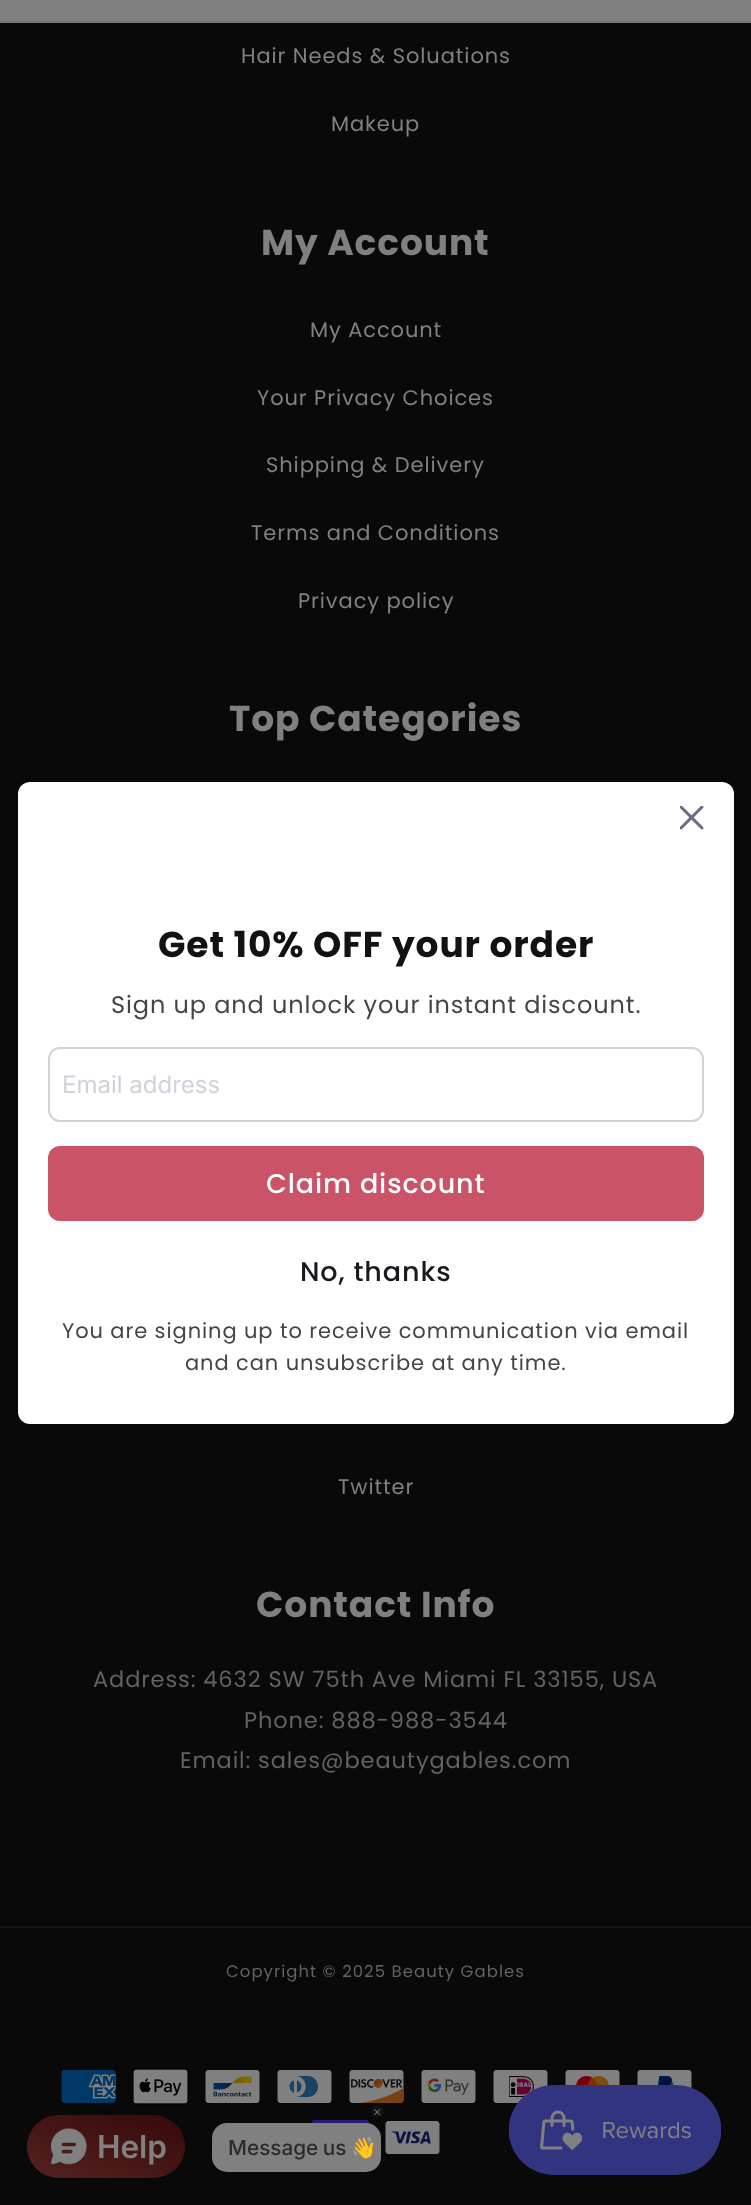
<?xml version="1.0" encoding="UTF-8"?>
<svg xmlns="http://www.w3.org/2000/svg" xmlns:xlink="http://www.w3.org/1999/xlink" width="751" height="2205">
  <defs>
    <linearGradient id="g1" gradientUnits="userSpaceOnUse" x1="124" y1="2094" x2="88" y2="2199"><stop offset="0" stop-color="#370808" /><stop offset="1" stop-color="#532323" /></linearGradient>
  </defs>
  <rect width="100%" height="100%" fill="#090909" />
  <rect width="751" height="21" fill="#808080" />
  <rect y="21" width="751" height="2" fill="#767676" />
  <rect y="1926" width="751" height="2" fill="#131313" />
  <image x="61" y="2070" width="55" height="33" xlink:href="image1.png" />
  <image x="132" y="2069" width="57" height="36" xlink:href="image2.png" />
  <image x="205" y="2070" width="55" height="33" xlink:href="image3.png" />
  <image x="277" y="2070" width="55" height="33" xlink:href="image4.png" />
  <image x="349" y="2070" width="55" height="33" xlink:href="image5.png" />
  <image x="421" y="2070" width="55" height="33" xlink:href="image6.png" />
  <image x="493" y="2070" width="55" height="33" xlink:href="image7.png" />
  <image x="565" y="2070" width="55" height="15" xlink:href="image8.png" />
  <image x="637" y="2070" width="55" height="18" xlink:href="image9.png" />
  <image x="312" y="2120" width="57" height="4" xlink:href="image10.png" />
  <image x="385" y="2121" width="55" height="33" xlink:href="image11.png" />
  <rect x="18" y="782" width="716" height="642" rx="12" fill="#ffffff" />
  <image x="680" y="806" width="24" height="24" xlink:href="image12.png" />
  <rect x="49" y="1048" width="654" height="73" rx="11" fill="none" stroke="#d1d1db" stroke-width="2" />
  <rect x="48" y="1146" width="656" height="75" rx="12" fill="#ca5367" />
  <rect x="27" y="2115" width="158" height="63" rx="31.5" fill="url(#g1)" />
  <ellipse cx="106" cy="2146.5" rx="79" ry="31.5" fill="url(#g1)" />
  <image x="51" y="2128" width="36" height="37" xlink:href="image13.png" />
  <rect x="212" y="2123" width="169" height="49" rx="15" fill="#808080" />
  <circle cx="377.5" cy="2111.5" r="6.5" fill="#121212" />
  <image x="374" y="2109" width="7" height="6" xlink:href="image14.png" />
  <image x="508" y="2085" width="214" height="90" xlink:href="image15.png" />
  <text x="241" y="63" style="font-family: Poppins; font-size: 21px; letter-spacing: 0.9px; fill: #808080">Hair Needs &amp; Soluations</text>
  <text x="331" y="131" style="font-family: Poppins; font-size: 21px; letter-spacing: 0.9px; fill: #808080">Makeup</text>
  <text x="261" y="255" style="font-family: Poppins; font-size: 36px; font-weight: bold; letter-spacing: 0.9px; fill: #808080">My Account</text>
  <text x="310" y="337" style="font-family: Poppins; font-size: 21px; letter-spacing: 0.9px; fill: #808080">My Account</text>
  <text x="257" y="405" style="font-family: Poppins; font-size: 21px; letter-spacing: 0.9px; fill: #808080">Your Privacy Choices</text>
  <text x="266" y="472" style="font-family: Poppins; font-size: 21px; letter-spacing: 0.9px; fill: #808080">Shipping &amp; Delivery</text>
  <text x="251" y="540" style="font-family: Poppins; font-size: 21px; letter-spacing: 0.9px; fill: #808080">Terms and Conditions</text>
  <text x="298" y="608" style="font-family: Poppins; font-size: 21px; letter-spacing: 0.9px; fill: #808080">Privacy policy</text>
  <text x="229" y="731" style="font-family: Poppins; font-size: 36px; font-weight: bold; letter-spacing: 0.9px; fill: #808080">Top Categories</text>
  <text x="338" y="1494" style="font-family: Poppins; font-size: 21px; letter-spacing: 0.9px; fill: #808080">Twitter</text>
  <text x="256" y="1617" style="font-family: Poppins; font-size: 36px; font-weight: bold; letter-spacing: 0.9px; fill: #808080">Contact Info</text>
  <text x="93" y="1687" style="font-family: Poppins; font-size: 22.5px; letter-spacing: 0.9px; fill: #626262">Address: 4632 SW 75th Ave Miami FL 33155, USA</text>
  <text x="244" y="1728" style="font-family: Poppins; font-size: 22.5px; letter-spacing: 0.9px; fill: #626262">Phone: 888-988-3544</text>
  <text x="180" y="1768" style="font-family: Poppins; font-size: 22.5px; letter-spacing: 0.9px; fill: #626262">Email: sales@beautygables.com</text>
  <text x="226" y="1977" style="font-family: Poppins; font-size: 16.5px; letter-spacing: 1.05px; fill: #626262">Copyright © 2025 Beauty Gables</text>
  <text x="158" y="957" style="font-family: Poppins; font-size: 36px; font-weight: bold; letter-spacing: 0.9px; fill: #121212">Get 10% OFF your order</text>
  <text x="111" y="1013" style="font-family: Poppins; font-size: 24px; letter-spacing: 0.9px; fill: #454545">Sign up and unlock your instant discount.</text>
  <text x="62" y="1093" style="font-family: Inter; font-size: 24px; fill: #d1d1db">Email address</text>
  <text x="266" y="1193" style="font-family: Poppins; font-size: 27px; font-weight: 500; letter-spacing: 0.9px; fill: #ffffff">Claim discount</text>
  <text x="300" y="1281" style="font-family: Poppins; font-size: 27px; font-weight: 500; letter-spacing: 0.9px; fill: #1a1a1e">No, thanks</text>
  <text x="62" y="1338" style="font-family: Poppins; font-size: 21px; letter-spacing: 0.9px; fill: #454545">You are signing up to receive communication via email</text>
  <text x="185" y="1370" style="font-family: Poppins; font-size: 21px; letter-spacing: 0.9px; fill: #454545">and can unsubscribe at any time.</text>
  <text x="97" y="2158" style="font-family: Inter; font-size: 31.5px; font-weight: 600; fill: #808080">Help</text>
  <text x="228" y="2155" word-spacing="-1" style="font-family: Inter; font-size: 20.75px; font-weight: 500; fill: #2b2b2b">Message us</text>
  <text x="351" y="2155" style="font-family: Noto Color Emoji; font-size: 20.75px; fill: #2b2b2b">👋</text>
</svg>
